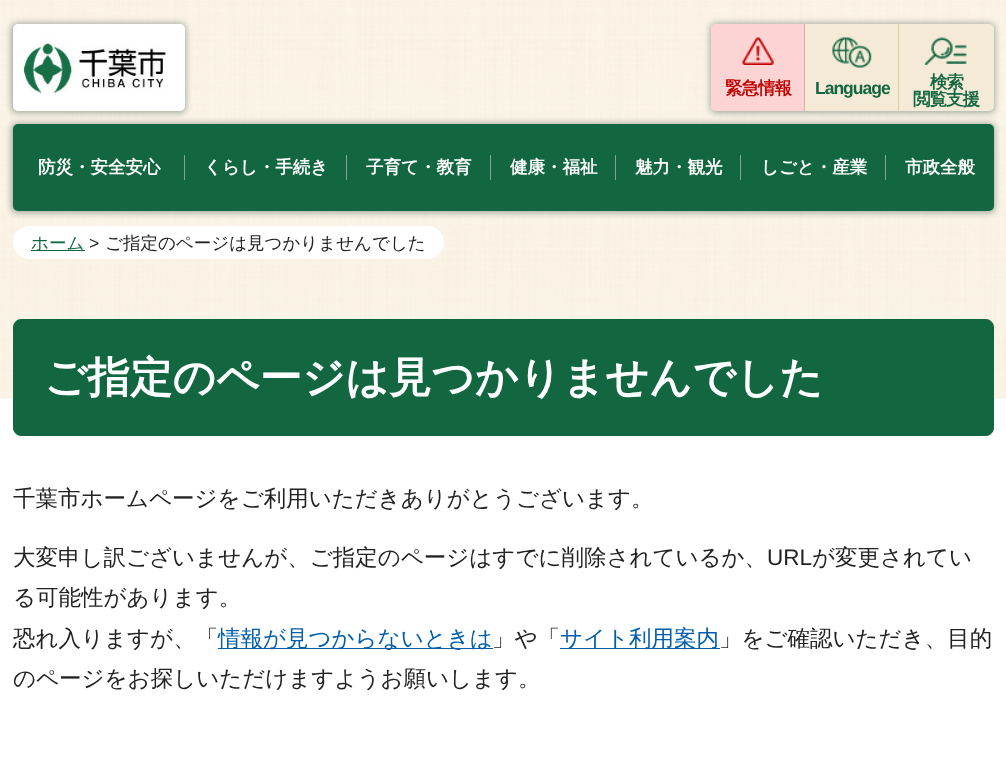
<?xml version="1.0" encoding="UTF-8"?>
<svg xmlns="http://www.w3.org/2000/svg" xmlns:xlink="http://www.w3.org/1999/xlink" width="1006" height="773">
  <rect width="100%" height="100%" fill="#ffffff" />
  <image x="0" y="0" width="1006" height="213" xlink:href="image1.png" />
  <rect x="11" y="23" width="175" height="90" rx="6" fill="#50665c" fill-opacity="0.5" filter="blur(3px)" />
  <rect x="13" y="24" width="172" height="87" rx="5" fill="#ffffff" />
  <image x="23" y="39" width="143" height="57" xlink:href="image2.png" />
  <rect x="710" y="23" width="285" height="90" rx="6" fill="#50665c" fill-opacity="0.5" filter="blur(3px)" />
  <rect x="711" y="24" width="283" height="87" rx="5" fill="#f5ead8" />
  <rect x="804" y="24" width="1" height="87" fill="#e2a7a7" />
  <path d="M 716 24 h 88 v 87 h -88 c -3 0 -5 -2 -5 -5 v -77 c 0 -3 2 -5 5 -5 z" fill="#fdd4d4" />
  <image x="742" y="37" width="32" height="28" xlink:href="image3.png" />
  <rect x="898" y="24" width="1" height="87" fill="#dccea0" />
  <image x="832" y="37" width="40" height="31" xlink:href="image4.png" />
  <image x="924" y="37" width="43" height="28" xlink:href="image5.png" />
  <image x="0" y="213" width="1006" height="186" xlink:href="image6.png" />
  <rect x="11" y="123" width="984" height="90" rx="6" fill="#50665c" fill-opacity="0.5" filter="blur(3px)" />
  <rect x="13" y="124" width="981" height="87" rx="5" fill="#136740" />
  <rect x="184" y="155" width="1" height="25" fill="#82a695" />
  <rect x="346" y="155" width="1" height="25" fill="#82a695" />
  <rect x="490" y="155" width="1" height="25" fill="#82a695" />
  <rect x="615" y="155" width="1" height="25" fill="#82a695" />
  <rect x="740" y="155" width="1" height="25" fill="#82a695" />
  <rect x="885" y="155" width="1" height="25" fill="#82a695" />
  <rect x="13" y="226" width="431" height="33" rx="16.5" fill="#ffffff" />
  <rect x="31" y="250" width="54" height="1" fill="#136740" />
  <rect x="13.5" y="319.5" width="980" height="116" rx="7.5" fill="#136740" stroke="#136740" />
  <rect x="218" y="648" width="275" height="1" fill="#005eaa" />
  <rect x="560" y="648" width="160" height="1" fill="#005eaa" />
  <text x="725" y="94" style="font-family: WenQuanYi Zen Hei; font-size: 17.5px; font-weight: bold; letter-spacing: -1px; fill: #bf0202">緊急情報</text>
  <text x="815" y="94" style="font-family: Liberation Sans; font-size: 17.5px; font-weight: bold; letter-spacing: -1px; fill: #136740">Language</text>
  <text x="930" y="88" style="font-family: WenQuanYi Zen Hei; font-size: 17.5px; font-weight: bold; letter-spacing: -1px; fill: #136740">検索</text>
  <text x="913" y="105" style="font-family: WenQuanYi Zen Hei; font-size: 17.5px; font-weight: bold; letter-spacing: -1px; fill: #136740">閲覧支援</text>
  <text x="38" y="173" style="font-family: WenQuanYi Zen Hei; font-size: 17.5px; font-weight: bold; fill: #ffffff">防災・安全安心</text>
  <text x="204" y="173" style="font-family: WenQuanYi Zen Hei; font-size: 17.5px; font-weight: bold; fill: #ffffff">くらし・手続き</text>
  <text x="366" y="173" style="font-family: WenQuanYi Zen Hei; font-size: 17.5px; font-weight: bold; fill: #ffffff">子育て・教育</text>
  <text x="510" y="173" style="font-family: WenQuanYi Zen Hei; font-size: 17.5px; font-weight: bold; fill: #ffffff">健康・福祉</text>
  <text x="635" y="173" style="font-family: WenQuanYi Zen Hei; font-size: 17.5px; font-weight: bold; fill: #ffffff">魅力・観光</text>
  <text x="761" y="173" style="font-family: WenQuanYi Zen Hei; font-size: 17.5px; font-weight: bold; fill: #ffffff">しごと・産業</text>
  <text x="905" y="173" style="font-family: WenQuanYi Zen Hei; font-size: 17.5px; font-weight: bold; fill: #ffffff">市政全般</text>
  <text x="31" y="249" style="font-family: WenQuanYi Zen Hei; font-size: 17.5px; font-weight: 500; fill: #136740">ホーム</text>
  <text x="89" y="249" style="font-family: Liberation Sans; font-size: 17.5px; fill: #222222">&gt;</text>
  <text x="105" y="249" style="font-family: WenQuanYi Zen Hei; font-size: 17.5px; font-weight: 500; fill: #222222">ご指定のページは見つかりませんでした</text>
  <text x="44" y="392" style="font-family: WenQuanYi Zen Hei; font-size: 42.5px; font-weight: bold; fill: #ffffff">ご指定のページは見つかりませんでした</text>
  <text x="13" y="506" style="font-family: WenQuanYi Zen Hei; font-size: 22.5px; font-weight: 500; fill: #222222">千葉市ホームページをご利用いただきありがとうございます。</text>
  <text x="13" y="565" style="font-family: WenQuanYi Zen Hei; font-size: 22.5px; font-weight: 500; fill: #222222">大変申し訳ございませんが、ご指定のページはすでに削除されているか、</text>
  <text x="767" y="565" style="font-family: Liberation Sans; font-size: 22.5px; fill: #222222">URL</text>
  <text x="812" y="565" style="font-family: WenQuanYi Zen Hei; font-size: 22.5px; font-weight: 500; fill: #222222">が変更されてい</text>
  <text x="13" y="605" style="font-family: WenQuanYi Zen Hei; font-size: 22.5px; font-weight: 500; fill: #222222">る可能性があります。</text>
  <text x="13" y="646" style="font-family: WenQuanYi Zen Hei; font-size: 22.5px; font-weight: 500; fill: #222222">恐れ入りますが、「</text>
  <text x="218" y="646" style="font-family: WenQuanYi Zen Hei; font-size: 22.5px; font-weight: 500; fill: #005eaa">情報が見つからないときは</text>
  <text x="492" y="646" style="font-family: WenQuanYi Zen Hei; font-size: 22.5px; font-weight: 500; fill: #222222">」や「</text>
  <text x="560" y="646" style="font-family: WenQuanYi Zen Hei; font-size: 22.5px; font-weight: 500; fill: #005eaa">サイト利用案内</text>
  <text x="719" y="646" style="font-family: WenQuanYi Zen Hei; font-size: 22.5px; font-weight: 500; fill: #222222">」をご確認いただき、目的</text>
  <text x="13" y="686" style="font-family: WenQuanYi Zen Hei; font-size: 22.5px; font-weight: 500; fill: #222222">のページをお探しいただけますようお願いします。</text>
</svg>
